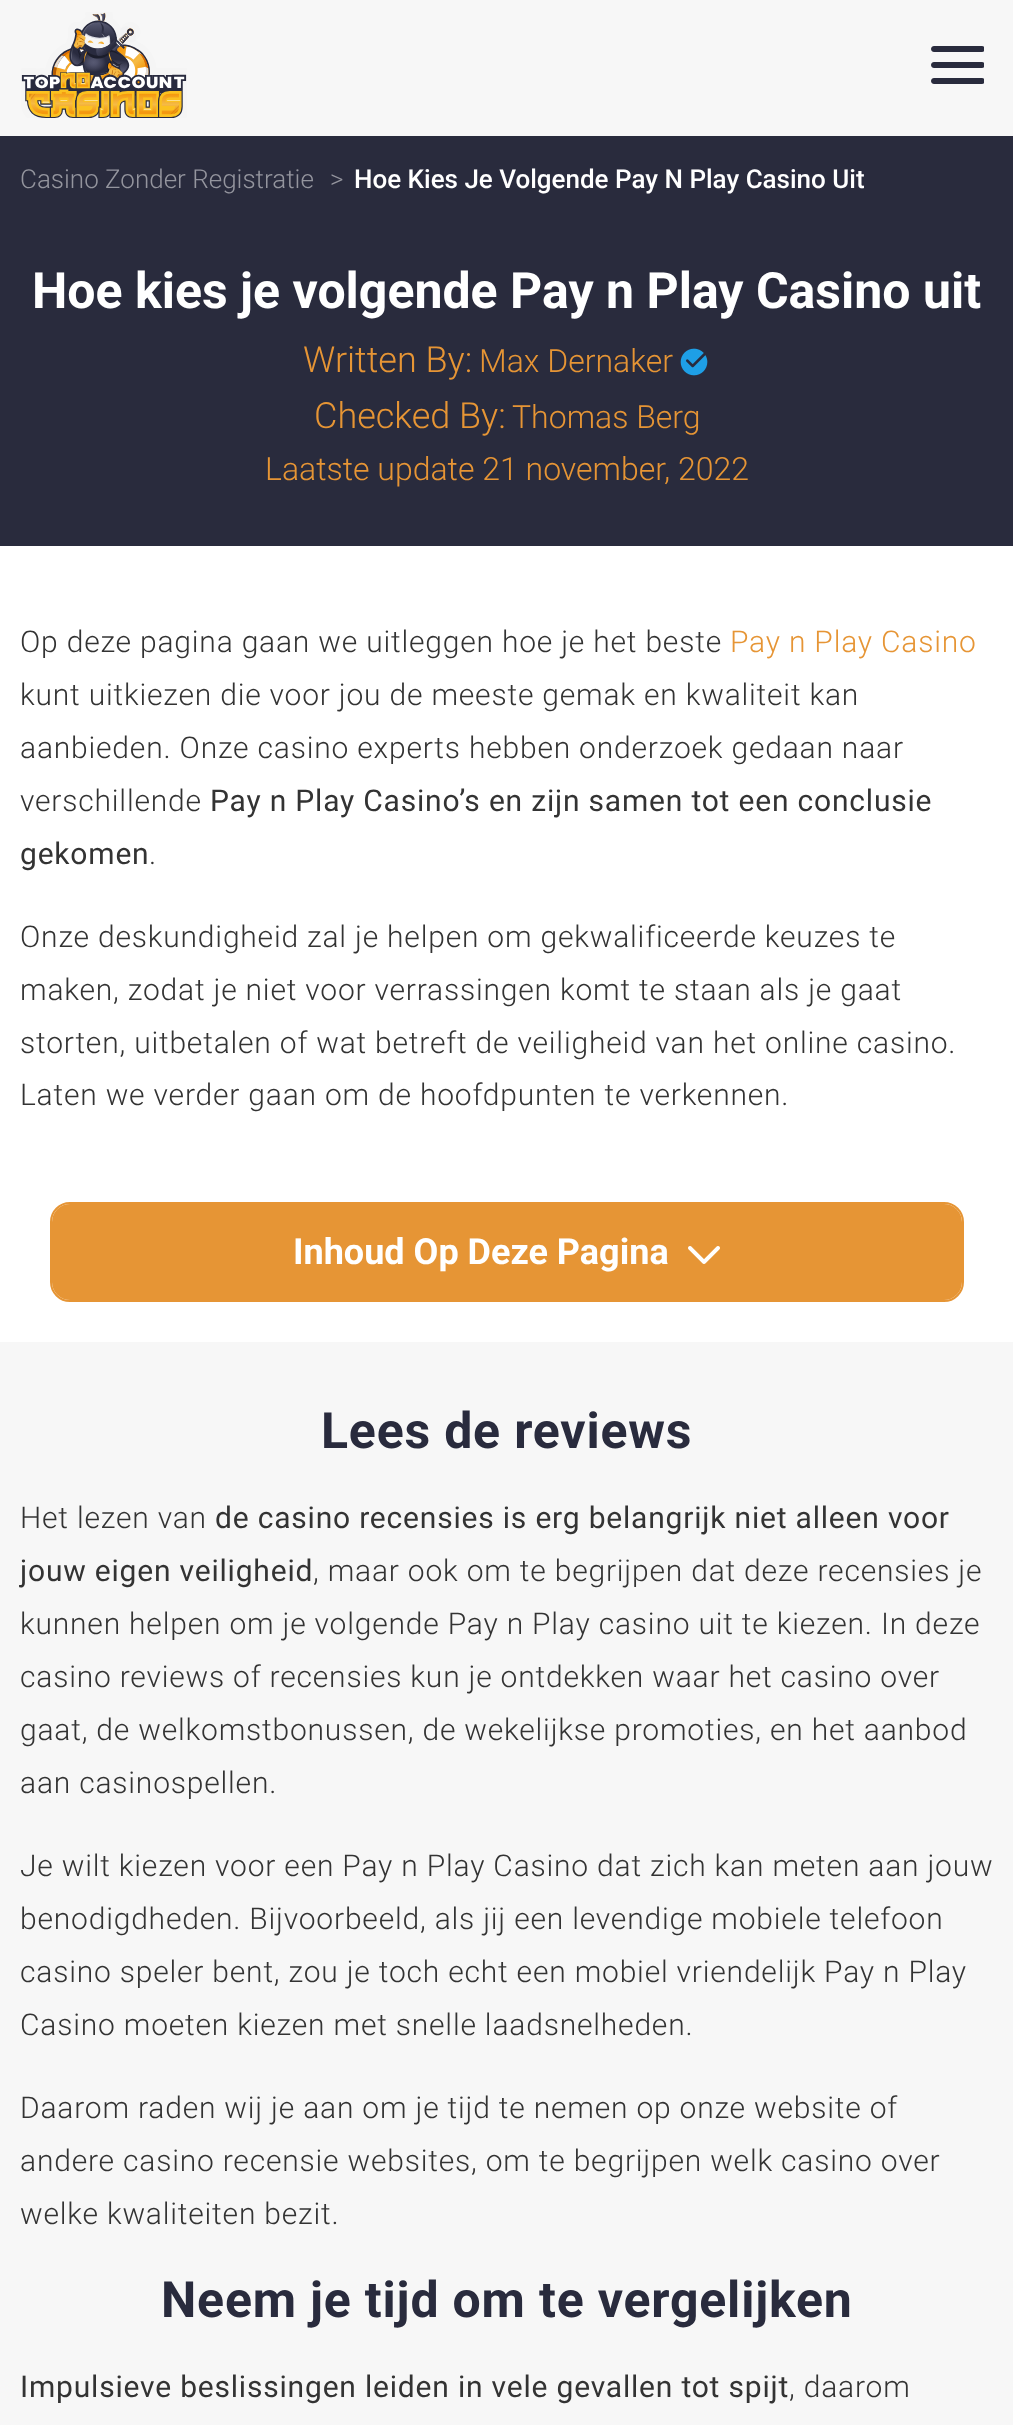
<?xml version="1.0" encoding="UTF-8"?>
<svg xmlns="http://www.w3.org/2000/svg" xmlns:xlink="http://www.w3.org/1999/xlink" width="1013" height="2425">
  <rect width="100%" height="100%" fill="#ffffff" />
  <rect width="1013" height="136" fill="#f7f7f7" />
  <image x="21" y="12" width="166" height="106" xlink:href="image1.png" />
  <image x="931" y="46" width="53" height="38" xlink:href="image2.png" />
  <rect y="136" width="1013" height="410" fill="#292b3d" />
  <image x="680" y="348" width="28" height="28" xlink:href="image3.png" />
  <rect x="51" y="1203" width="912" height="98" rx="19" fill="none" stroke="#e69535" stroke-width="2" />
  <rect x="52" y="1204" width="910" height="96" rx="18" fill="#e69535" />
  <image x="688" y="1246" width="32" height="18" xlink:href="image4.png" />
  <rect y="1342" width="1013" height="1083" fill="#f7f7f7" />
  <text x="20" y="188" style="font-family: Roboto; font-size: 26px; font-weight: 300; fill: #94959e">Casino Zonder Registratie</text>
  <text x="330" y="188" style="font-family: Roboto; font-size: 26px; font-weight: 300; fill: #94959e">&gt;</text>
  <text x="354" y="188" style="font-family: Roboto; font-size: 26px; font-weight: 500; fill: #ffffff">Hoe Kies Je Volgende Pay N Play Casino Uit</text>
  <text x="32" y="308" style="font-family: Roboto; font-size: 50px; font-weight: bold; fill: #ffffff">Hoe kies je volgende Pay n Play Casino uit</text>
  <text x="303" y="372" style="font-family: Roboto; font-size: 36px; font-weight: 300; fill: #e69535">Written By:</text>
  <text x="479" y="372" style="font-family: Roboto; font-size: 32px; font-weight: 300; fill: #e69535">Max Dernaker</text>
  <text x="314" y="428" style="font-family: Roboto; font-size: 36px; font-weight: 300; fill: #e69535">Checked By:</text>
  <text x="512" y="428" style="font-family: Roboto; font-size: 32px; font-weight: 300; fill: #e69535">Thomas Berg</text>
  <text x="265" y="480" style="font-family: Roboto; font-size: 32px; font-weight: 300; fill: #e69535">Laatste update 21 november, 2022</text>
  <text x="20" y="652" style="font-family: Roboto; font-size: 30px; font-weight: 300; letter-spacing: 0.8px; fill: #333333">Op deze pagina gaan we uitleggen hoe je het beste</text>
  <text x="730" y="652" style="font-family: Roboto; font-size: 30px; font-weight: 300; letter-spacing: 0.8px; fill: #e69535">Pay n Play Casino</text>
  <text x="20" y="705" style="font-family: Roboto; font-size: 30px; font-weight: 300; letter-spacing: 0.8px; fill: #333333">kunt uitkiezen die voor jou de meeste gemak en kwaliteit kan</text>
  <text x="20" y="758" style="font-family: Roboto; font-size: 30px; font-weight: 300; letter-spacing: 0.8px; fill: #333333">aanbieden. Onze casino experts hebben onderzoek gedaan naar</text>
  <text x="20" y="811" style="font-family: Roboto; font-size: 30px; font-weight: 300; letter-spacing: 0.8px; fill: #333333">verschillende</text>
  <text x="210" y="811" style="font-family: Roboto; font-size: 30px; letter-spacing: 0.8px; fill: #333333">Pay n Play Casino’s en zijn samen tot een conclusie</text>
  <text x="20" y="864" style="font-family: Roboto; font-size: 30px; letter-spacing: 0.8px; fill: #333333">gekomen</text>
  <text x="149" y="864" style="font-family: Roboto; font-size: 30px; font-weight: 300; letter-spacing: 0.8px; fill: #333333">.</text>
  <text x="20" y="947" style="font-family: Roboto; font-size: 30px; font-weight: 300; letter-spacing: 0.8px; fill: #333333">Onze deskundigheid zal je helpen om gekwalificeerde keuzes te</text>
  <text x="20" y="1000" style="font-family: Roboto; font-size: 30px; font-weight: 300; letter-spacing: 0.8px; fill: #333333">maken, zodat je niet voor verrassingen komt te staan als je gaat</text>
  <text x="20" y="1053" style="font-family: Roboto; font-size: 30px; font-weight: 300; letter-spacing: 0.8px; fill: #333333">storten, uitbetalen of wat betreft de veiligheid van het online casino.</text>
  <text x="20" y="1105" style="font-family: Roboto; font-size: 30px; font-weight: 300; letter-spacing: 0.8px; fill: #333333">Laten we verder gaan om de hoofdpunten te verkennen.</text>
  <text x="293" y="1264" style="font-family: Roboto; font-size: 36px; font-weight: bold; fill: #ffffff">Inhoud Op Deze Pagina</text>
  <text x="321" y="1448" style="font-family: Roboto; font-size: 50px; font-weight: bold; letter-spacing: 0.8px; fill: #292b3d">Lees de reviews</text>
  <text x="20" y="1528" style="font-family: Roboto; font-size: 30px; font-weight: 300; letter-spacing: 0.8px; fill: #333333">Het lezen van</text>
  <text x="215" y="1528" style="font-family: Roboto; font-size: 30px; letter-spacing: 0.8px; fill: #333333">de casino recensies is erg belangrijk niet alleen voor</text>
  <text x="20" y="1581" style="font-family: Roboto; font-size: 30px; letter-spacing: 0.8px; fill: #333333">jouw eigen veiligheid</text>
  <text x="313" y="1581" style="font-family: Roboto; font-size: 30px; font-weight: 300; letter-spacing: 0.8px; fill: #333333">, maar ook om te begrijpen dat deze recensies je</text>
  <text x="20" y="1634" style="font-family: Roboto; font-size: 30px; font-weight: 300; letter-spacing: 0.8px; fill: #333333">kunnen helpen om je volgende Pay n Play casino uit te kiezen. In deze</text>
  <text x="20" y="1687" style="font-family: Roboto; font-size: 30px; font-weight: 300; letter-spacing: 0.8px; fill: #333333">casino reviews of recensies kun je ontdekken waar het casino over</text>
  <text x="20" y="1740" style="font-family: Roboto; font-size: 30px; font-weight: 300; letter-spacing: 0.8px; fill: #333333">gaat, de welkomstbonussen, de wekelijkse promoties, en het aanbod</text>
  <text x="20" y="1793" style="font-family: Roboto; font-size: 30px; font-weight: 300; letter-spacing: 0.8px; fill: #333333">aan casinospellen.</text>
  <text x="20" y="1876" style="font-family: Roboto; font-size: 30px; font-weight: 300; letter-spacing: 0.8px; fill: #333333">Je wilt kiezen voor een Pay n Play Casino dat zich kan meten aan jouw</text>
  <text x="20" y="1929" style="font-family: Roboto; font-size: 30px; font-weight: 300; letter-spacing: 0.8px; fill: #333333">benodigdheden. Bijvoorbeeld, als jij een levendige mobiele telefoon</text>
  <text x="20" y="1982" style="font-family: Roboto; font-size: 30px; font-weight: 300; letter-spacing: 0.8px; fill: #333333">casino speler bent, zou je toch echt een mobiel vriendelijk Pay n Play</text>
  <text x="20" y="2035" style="font-family: Roboto; font-size: 30px; font-weight: 300; letter-spacing: 0.8px; fill: #333333">Casino moeten kiezen met snelle laadsnelheden.</text>
  <text x="20" y="2118" style="font-family: Roboto; font-size: 30px; font-weight: 300; letter-spacing: 0.8px; fill: #333333">Daarom raden wij je aan om je tijd te nemen op onze website of</text>
  <text x="20" y="2171" style="font-family: Roboto; font-size: 30px; font-weight: 300; letter-spacing: 0.8px; fill: #333333">andere casino recensie websites, om te begrijpen welk casino over</text>
  <text x="20" y="2224" style="font-family: Roboto; font-size: 30px; font-weight: 300; letter-spacing: 0.8px; fill: #333333">welke kwaliteiten bezit.</text>
  <text x="161" y="2317" style="font-family: Roboto; font-size: 50px; font-weight: bold; letter-spacing: 0.8px; fill: #292b3d">Neem je tijd om te vergelijken</text>
  <text x="20" y="2397" style="font-family: Roboto; font-size: 30px; letter-spacing: 0.8px; fill: #333333">Impulsieve beslissingen leiden in vele gevallen tot spijt</text>
  <text x="789" y="2397" style="font-family: Roboto; font-size: 30px; font-weight: 300; letter-spacing: 0.8px; fill: #333333">, daarom</text>
</svg>
